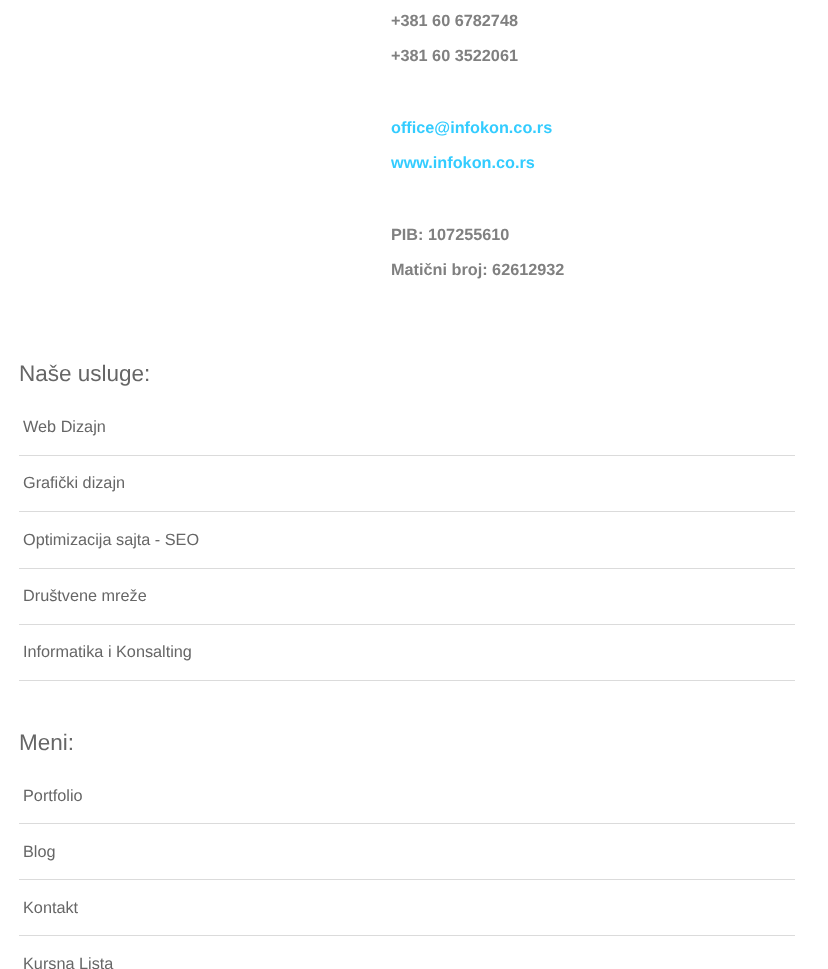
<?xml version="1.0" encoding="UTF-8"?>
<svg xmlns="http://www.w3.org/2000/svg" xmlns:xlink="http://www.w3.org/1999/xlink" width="828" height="969">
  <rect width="100%" height="100%" fill="#ffffff" />
  <rect x="19" y="455" width="776" height="1" fill="#dbdbdb" />
  <rect x="19" y="511" width="776" height="1" fill="#dbdbdb" />
  <rect x="19" y="568" width="776" height="1" fill="#dbdbdb" />
  <rect x="19" y="624" width="776" height="1" fill="#dbdbdb" />
  <rect x="19" y="680" width="776" height="1" fill="#dbdbdb" />
  <rect x="19" y="823" width="776" height="1" fill="#dbdbdb" />
  <rect x="19" y="879" width="776" height="1" fill="#dbdbdb" />
  <rect x="19" y="935" width="776" height="1" fill="#dbdbdb" />
  <text x="391" y="26" style="font-family: Liberation Sans; font-size: 16.25px; font-weight: bold; fill: #808080">+381 60 6782748</text>
  <text x="391" y="61" style="font-family: Liberation Sans; font-size: 16.25px; font-weight: bold; fill: #808080">+381 60 3522061</text>
  <text x="391" y="133" style="font-family: Liberation Sans; font-size: 16.25px; font-weight: bold; fill: #33ccff">office@infokon.co.rs</text>
  <text x="391" y="168" style="font-family: Liberation Sans; font-size: 16.25px; font-weight: bold; fill: #33ccff">www.infokon.co.rs</text>
  <text x="391" y="240" style="font-family: Liberation Sans; font-size: 16.25px; font-weight: bold; fill: #808080">PIB: 107255610</text>
  <text x="391" y="275" style="font-family: Liberation Sans; font-size: 16.25px; font-weight: bold; fill: #808080">Matični broj: 62612932</text>
  <text x="19" y="381" style="font-family: Liberation Sans; font-size: 22.5px; fill: #666666">Naše usluge:</text>
  <text x="23" y="432" style="font-family: Liberation Sans; font-size: 16.25px; fill: #666666">Web Dizajn</text>
  <text x="23" y="488" style="font-family: Liberation Sans; font-size: 16.25px; fill: #666666">Grafički dizajn</text>
  <text x="23" y="545" style="font-family: Liberation Sans; font-size: 16.25px; fill: #666666">Optimizacija sajta - SEO</text>
  <text x="23" y="601" style="font-family: Liberation Sans; font-size: 16.25px; fill: #666666">Društvene mreže</text>
  <text x="23" y="657" style="font-family: Liberation Sans; font-size: 16.25px; fill: #666666">Informatika i Konsalting</text>
  <text x="19" y="750" style="font-family: Liberation Sans; font-size: 22.5px; fill: #666666">Meni:</text>
  <text x="23" y="801" style="font-family: Liberation Sans; font-size: 16.25px; fill: #666666">Portfolio</text>
  <text x="23" y="857" style="font-family: Liberation Sans; font-size: 16.25px; fill: #666666">Blog</text>
  <text x="23" y="913" style="font-family: Liberation Sans; font-size: 16.25px; fill: #666666">Kontakt</text>
  <text x="23" y="969" style="font-family: Liberation Sans; font-size: 16.25px; fill: #666666">Kursna Lista</text>
</svg>
